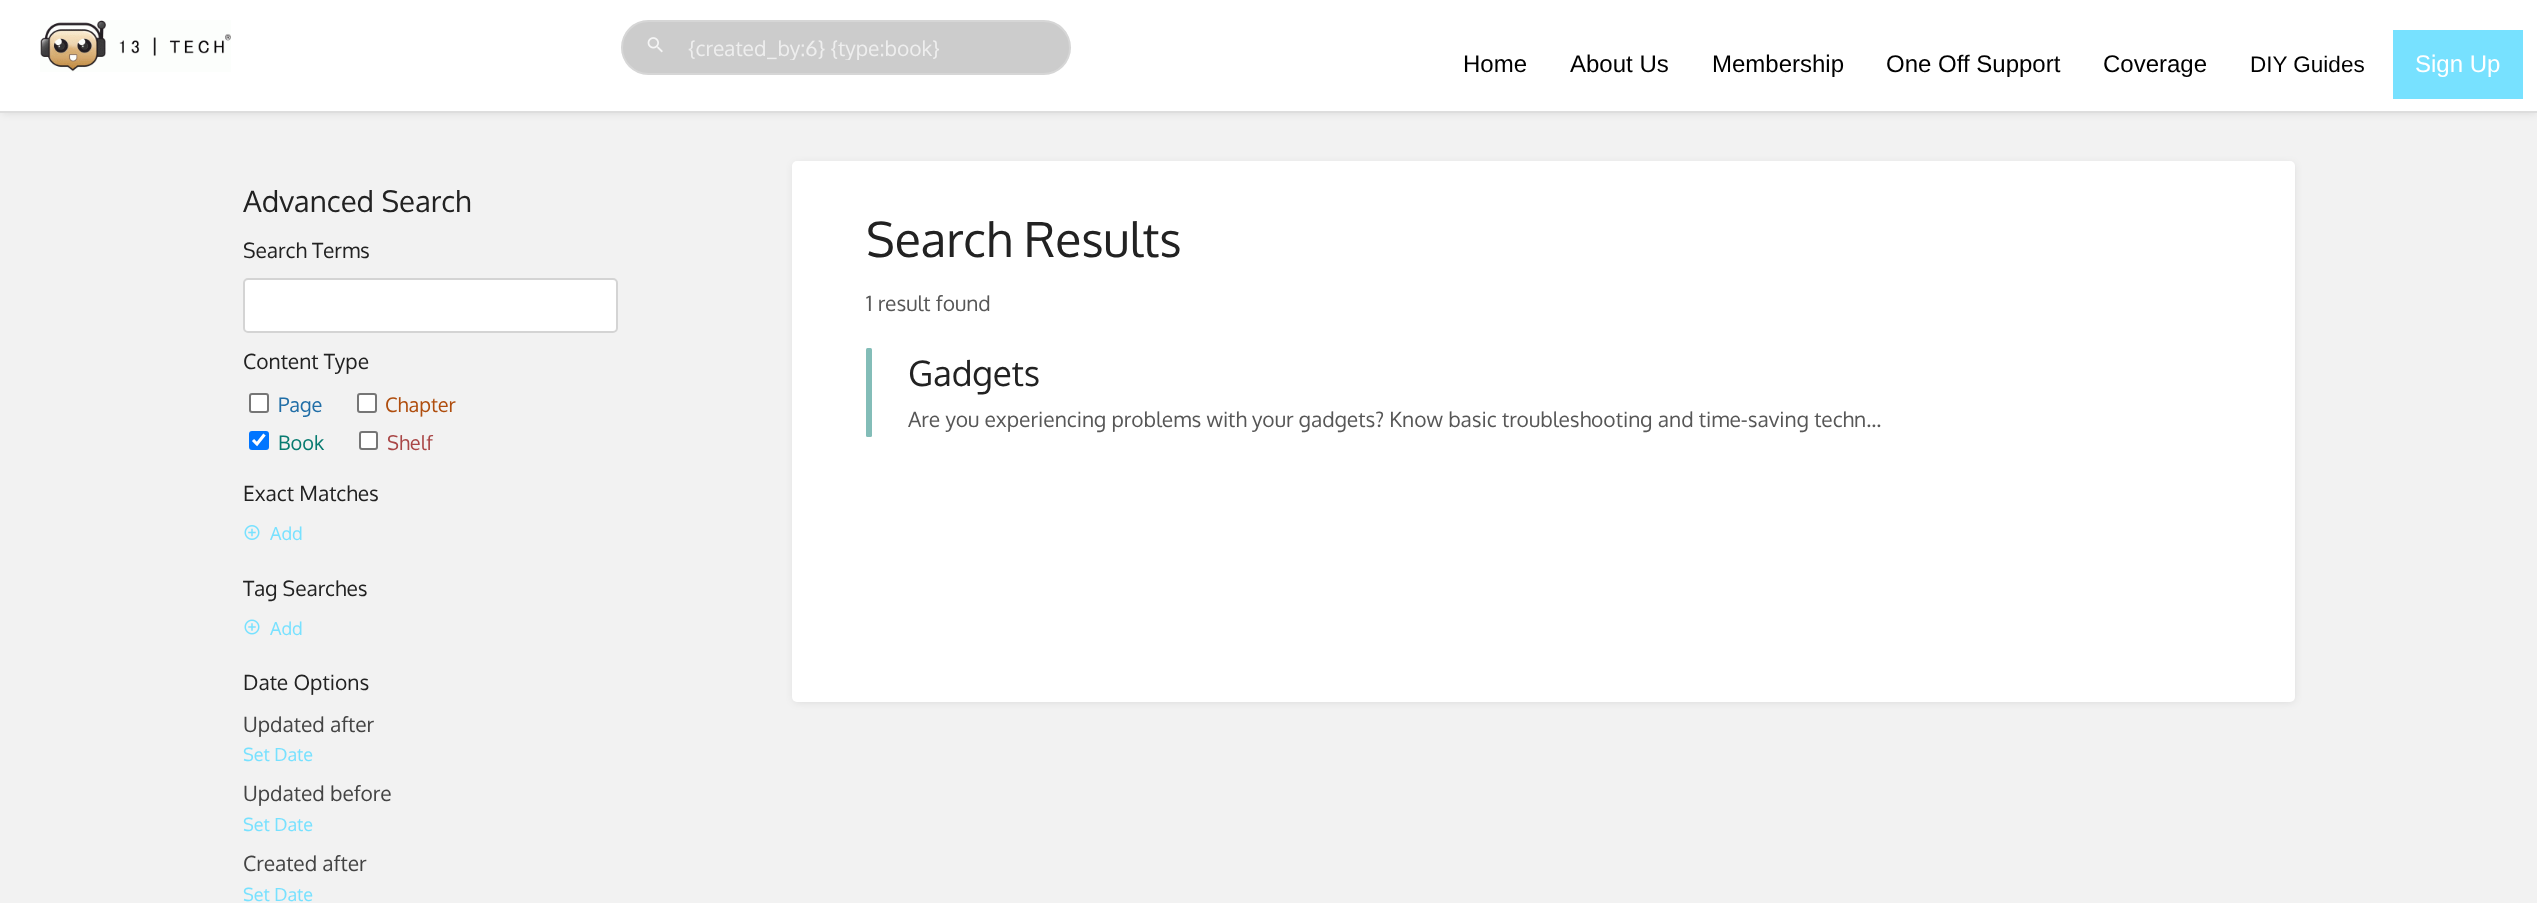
<?xml version="1.0" encoding="UTF-8"?>
<svg xmlns="http://www.w3.org/2000/svg" xmlns:xlink="http://www.w3.org/1999/xlink" width="2537" height="903">
  <defs>
    <clipPath id="clip1"><rect x="683" y="35" width="373" height="25" /></clipPath>
  </defs>
  <rect width="100%" height="100%" fill="#f2f2f2" />
  <rect x="2" y="3" width="2535" height="110" fill="#000000" fill-opacity="0.1" filter="blur(4.5px)" />
  <rect width="2537" height="111" fill="#ffffff" />
  <rect y="111" width="2537" height="2" fill="#dddddd" />
  <image x="40" y="20" width="191" height="52" xlink:href="image1.png" />
  <rect x="621" y="20" width="450" height="55" rx="27.5" fill="#cccccc" />
  <rect x="622" y="21" width="448" height="53" rx="26.5" fill="none" stroke="#ffffff" stroke-opacity="0.2" stroke-width="2" />
  <image x="647" y="37" width="16" height="16" xlink:href="image2.png" />
  <rect x="2393" y="30" width="130" height="69" fill="#77e1ff" />
  <rect x="244" y="279" width="373" height="53" rx="4" fill="#ffffff" stroke="#d4d4d4" stroke-width="2" />
  <rect x="250" y="394" width="18" height="18" rx="2" fill="#ffffff" stroke="#767676" stroke-width="2" />
  <rect x="358" y="394" width="18" height="18" rx="2" fill="#ffffff" stroke="#767676" stroke-width="2" />
  <rect x="249" y="431" width="20" height="19" rx="3" fill="#0075ff" />
  <path d="M 253 440 l 4 4 l 7.5 -9.5" fill="none" stroke="#ffffff" stroke-width="3.1" />
  <rect x="360" y="432" width="17" height="17" rx="2" fill="#ffffff" stroke="#767676" stroke-width="2" />
  <image x="244" y="525" width="16" height="15" xlink:href="image3.png" />
  <image x="244" y="619" width="16" height="16" xlink:href="image4.png" />
  <rect x="794" y="164" width="1500" height="538" rx="3" fill="#000000" fill-opacity="0.1" filter="blur(4.5px)" />
  <rect x="792" y="161" width="1503" height="541" rx="5" fill="#ffffff" />
  <rect x="866" y="348" width="6" height="89" rx="1.5" fill="#83bdb8" />
  <g clip-path="url(#clip1)">
    <text x="688" y="56" style="font-family: Oxygen; font-size: 21px; fill: #eeeeee">{created_by:6} {type:book}</text>
  </g>
  <text x="1463" y="72" style="font-family: Liberation Sans; font-size: 24px; fill: #000000">Home</text>
  <text x="1570" y="72" style="font-family: Liberation Sans; font-size: 24px; fill: #000000">About Us</text>
  <text x="1712" y="72" style="font-family: Liberation Sans; font-size: 24px; fill: #000000">Membership</text>
  <text x="1886" y="72" style="font-family: Liberation Sans; font-size: 24px; fill: #000000">One Off Support</text>
  <text x="2103" y="72" style="font-family: Liberation Sans; font-size: 24px; fill: #000000">Coverage</text>
  <text x="2250" y="72" style="font-family: Liberation Sans; font-size: 22.5px; fill: #000000">DIY Guides</text>
  <text x="2415" y="72" style="font-family: Liberation Sans; font-size: 24px; fill: #ffffff">Sign Up</text>
  <text x="243" y="212" style="font-family: Oxygen; font-size: 29.5px; fill: #222222">Advanced Search</text>
  <text x="243" y="258" style="font-family: Oxygen; font-size: 21px; fill: #222222">Search Terms</text>
  <text x="243" y="369" style="font-family: Oxygen; font-size: 21px; fill: #222222">Content Type</text>
  <text x="278" y="412" style="font-family: Oxygen; font-size: 20px; fill: #206ea7">Page</text>
  <text x="385" y="412" style="font-family: Oxygen; font-size: 20px; fill: #af4d0d">Chapter</text>
  <text x="278" y="450" style="font-family: Oxygen; font-size: 20px; fill: #077b70">Book</text>
  <text x="387" y="450" style="font-family: Oxygen; font-size: 20px; fill: #a94747">Shelf</text>
  <text x="243" y="501" style="font-family: Oxygen; font-size: 21px; fill: #222222">Exact Matches</text>
  <text x="270" y="540" style="font-family: Oxygen; font-size: 18px; fill: #77e1ff">Add</text>
  <text x="243" y="596" style="font-family: Oxygen; font-size: 21px; fill: #222222">Tag Searches</text>
  <text x="270" y="635" style="font-family: Oxygen; font-size: 18px; fill: #77e1ff">Add</text>
  <text x="243" y="690" style="font-family: Oxygen; font-size: 21px; fill: #222222">Date Options</text>
  <text x="243" y="732" style="font-family: Oxygen; font-size: 21px; fill: #444444">Updated after</text>
  <text x="243" y="761" style="font-family: Oxygen; font-size: 18px; fill: #77e1ff">Set Date</text>
  <text x="243" y="801" style="font-family: Oxygen; font-size: 21px; fill: #444444">Updated before</text>
  <text x="243" y="831" style="font-family: Oxygen; font-size: 18px; fill: #77e1ff">Set Date</text>
  <text x="243" y="871" style="font-family: Oxygen; font-size: 21px; fill: #444444">Created after</text>
  <text x="243" y="901" style="font-family: Oxygen; font-size: 18px; fill: #77e1ff">Set Date</text>
  <text x="866" y="257" style="font-family: Oxygen; font-size: 48px; fill: #222222">Search Results</text>
  <text x="866" y="311" style="font-family: Oxygen; font-size: 21px; fill: #575757">1 result found</text>
  <text x="908" y="386" style="font-family: Oxygen; font-size: 35px; fill: #222222">Gadgets</text>
  <text x="908" y="427" style="font-family: Oxygen; font-size: 21px; fill: #575757">Are you experiencing problems with your gadgets? Know basic troubleshooting and time-saving techn...</text>
</svg>
